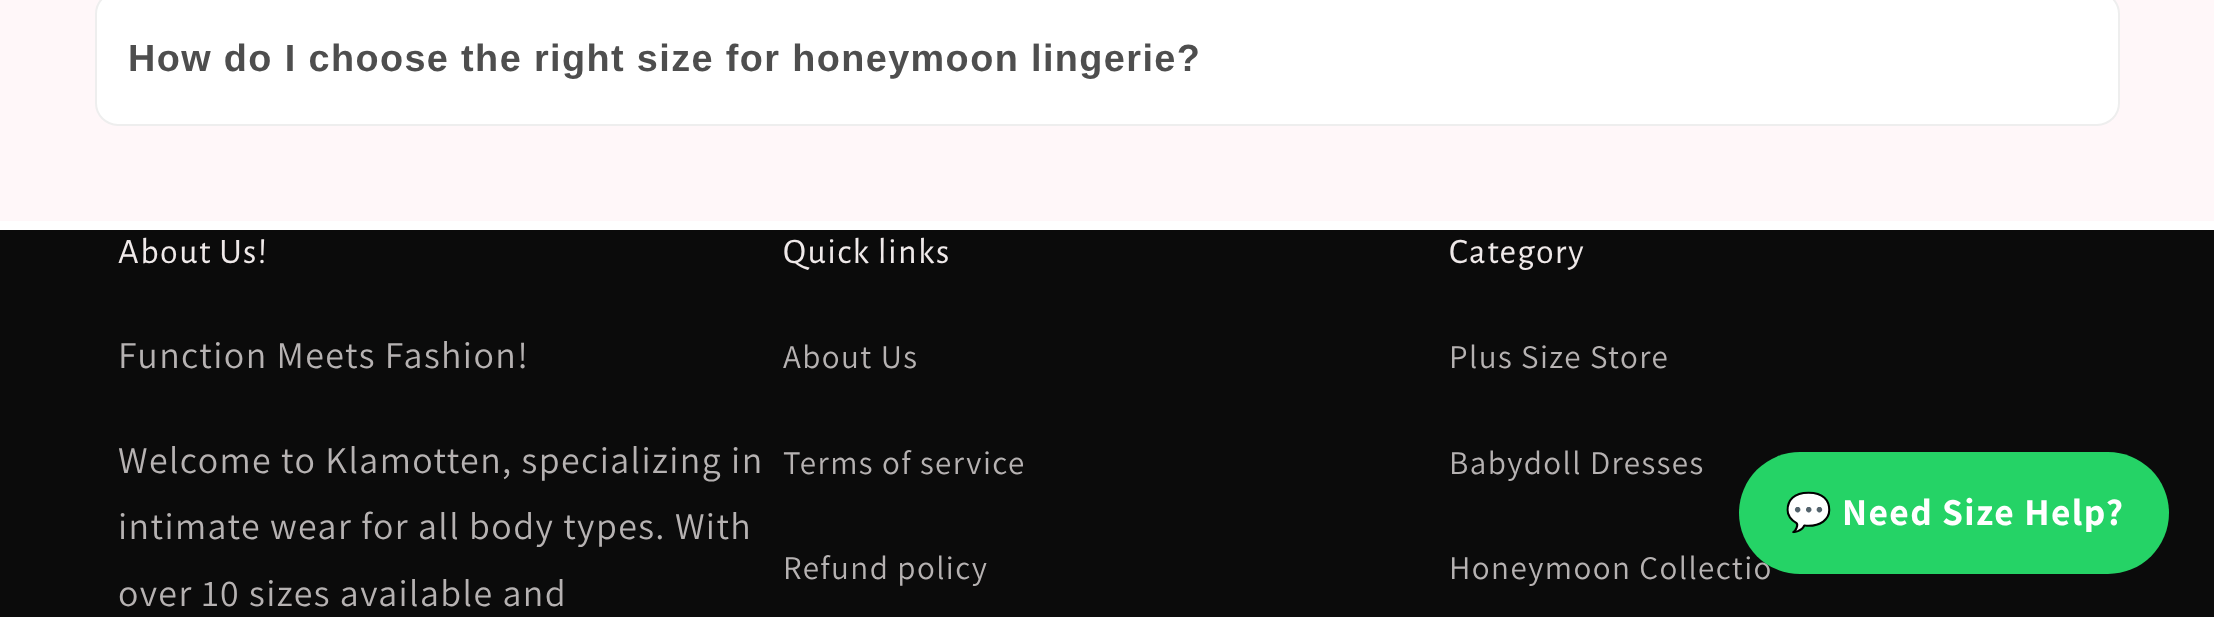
<?xml version="1.0" encoding="UTF-8"?>
<svg xmlns="http://www.w3.org/2000/svg" xmlns:xlink="http://www.w3.org/1999/xlink" width="2214" height="617">
  <rect width="100%" height="100%" fill="#ffffff" />
  <rect width="2214" height="221" fill="#fff7f9" />
  <rect x="96" y="-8" width="2023" height="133" rx="22" fill="#ffffff" stroke="#eeeeee" stroke-width="2" />
  <rect y="230" width="2214" height="387" fill="#0b0b0b" />
  <text x="128" y="71" word-spacing="-0.1" style="font-family: Liberation Sans; font-size: 37.8px; font-weight: bold; letter-spacing: 1.42px; fill: #4e4e4e">How do I choose the right size for honeymoon lingerie?</text>
  <text x="118" y="263" style="font-family: Alegreya Sans; font-size: 36px; letter-spacing: 1.4px; fill: #efe9e9">About Us!</text>
  <text x="118" y="368" style="font-family: Assistant; font-size: 37.8px; letter-spacing: 1.42px; fill: #b6b2b2">Function Meets Fashion!</text>
  <text x="118" y="473" style="font-family: Assistant; font-size: 37.8px; letter-spacing: 1.42px; fill: #b6b2b2">Welcome to Klamotten, specializing in</text>
  <text x="118" y="539" style="font-family: Assistant; font-size: 37.8px; letter-spacing: 1.42px; fill: #b6b2b2">intimate wear for all body types. With</text>
  <text x="118" y="606" style="font-family: Assistant; font-size: 37.8px; letter-spacing: 1.42px; fill: #b6b2b2">over 10 sizes available and</text>
  <text x="783" y="263" style="font-family: Alegreya Sans; font-size: 36px; letter-spacing: 1.4px; fill: #efe9e9">Quick links</text>
  <text x="783" y="368" style="font-family: Assistant; font-size: 33px; letter-spacing: 1.42px; fill: #b6b2b2">About Us</text>
  <text x="783" y="474" style="font-family: Assistant; font-size: 33px; letter-spacing: 1.42px; fill: #b6b2b2">Terms of service</text>
  <text x="783" y="579" style="font-family: Assistant; font-size: 33px; letter-spacing: 1.42px; fill: #b6b2b2">Refund policy</text>
  <text x="1449" y="263" style="font-family: Alegreya Sans; font-size: 36px; letter-spacing: 1.4px; fill: #efe9e9">Category</text>
  <text x="1449" y="368" style="font-family: Assistant; font-size: 33px; letter-spacing: 1.42px; fill: #b6b2b2">Plus Size Store</text>
  <text x="1449" y="474" style="font-family: Assistant; font-size: 33px; letter-spacing: 1.42px; fill: #b6b2b2">Babydoll Dresses</text>
  <text x="1449" y="579" style="font-family: Assistant; font-size: 33px; letter-spacing: 1.42px; fill: #b6b2b2">Honeymoon Collectio</text>
  <rect x="1739" y="452" width="430" height="122" rx="61" fill="#25d366" />
  <text x="1785" y="525" style="font-family: Noto Color Emoji; font-size: 37.8px; font-weight: bold; letter-spacing: 1.42px; fill: #ffffff">💬</text>
  <text x="1842" y="525" style="font-family: Assistant; font-size: 37.8px; font-weight: bold; letter-spacing: 1.42px; fill: #ffffff">Need Size Help?</text>
</svg>
